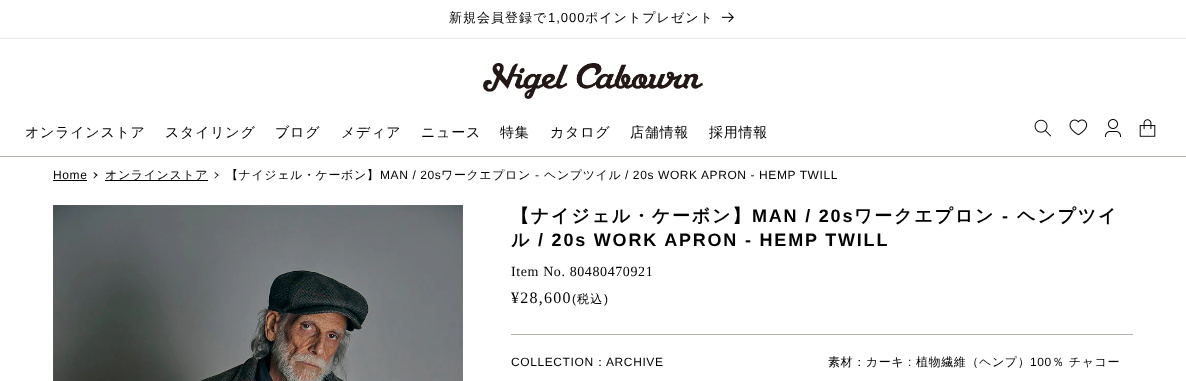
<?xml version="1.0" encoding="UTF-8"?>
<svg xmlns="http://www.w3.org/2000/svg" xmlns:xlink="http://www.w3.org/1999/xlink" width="1186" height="381">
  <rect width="100%" height="100%" fill="#ffffff" />
  <rect y="38" width="1186" height="1" fill="#ebebeb" />
  <image x="722" y="12" width="12" height="11" xlink:href="image1.png" />
  <rect y="156" width="1186" height="1" fill="#b2b2ad" />
  <image x="483" y="63" width="220" height="36" xlink:href="image2.png" />
  <image x="1034" y="119" width="17" height="18" xlink:href="image3.png" />
  <image x="1069" y="119" width="19" height="17" xlink:href="image4.png" />
  <image x="1105" y="119" width="16" height="18" xlink:href="image5.png" />
  <image x="1139" y="119" width="17" height="18" xlink:href="image6.png" />
  <rect x="53" y="180" width="34" height="1" fill="#000000" />
  <path d="M 93.5 172.5 l 0.5 -0.5 l 3.5 3 l -1 1 z" fill="#000000" />
  <path d="M 93.5 178 l 3 -3.5 l 1 0.5 l -3.5 3.5 z" fill="#000000" />
  <rect x="105" y="180" width="103" height="1" fill="#000000" />
  <path d="M 214.5 172.5 l 0.5 -0.5 l 3.5 3 l -0.5 1 z" fill="#000000" />
  <path d="M 214.5 178 l 3.5 -3.5 l 0.5 0.5 l -3.5 3.5 z" fill="#000000" />
  <image x="53" y="205" width="410" height="176" xlink:href="image7.png" />
  <rect x="511" y="334" width="622" height="1" fill="#b2b2ad" />
  <text x="449" y="22" style="font-family: WenQuanYi Zen Hei; font-size: 13px; font-weight: 500; letter-spacing: 1px; fill: #000000">新規会員登録で</text>
  <text x="548" y="22" style="font-family: Liberation Sans; font-size: 13px; letter-spacing: 1px; fill: #000000">1,000</text>
  <text x="585" y="22" style="font-family: WenQuanYi Zen Hei; font-size: 13px; font-weight: 500; letter-spacing: 1px; fill: #000000">ポイントプレゼント</text>
  <text x="25" y="137" style="font-family: WenQuanYi Zen Hei; font-size: 14px; font-weight: 500; letter-spacing: 0.75px; fill: #000000">オンラインストア</text>
  <text x="165" y="137" style="font-family: WenQuanYi Zen Hei; font-size: 14px; font-weight: 500; letter-spacing: 0.75px; fill: #000000">スタイリング</text>
  <text x="275" y="137" style="font-family: WenQuanYi Zen Hei; font-size: 14px; font-weight: 500; letter-spacing: 0.75px; fill: #000000">ブログ</text>
  <text x="341" y="137" style="font-family: WenQuanYi Zen Hei; font-size: 14px; font-weight: 500; letter-spacing: 0.75px; fill: #000000">メディア</text>
  <text x="421" y="137" style="font-family: WenQuanYi Zen Hei; font-size: 14px; font-weight: 500; letter-spacing: 0.75px; fill: #000000">ニュース</text>
  <text x="500" y="137" style="font-family: WenQuanYi Zen Hei; font-size: 14px; font-weight: 500; letter-spacing: 0.75px; fill: #000000">特集</text>
  <text x="550" y="137" style="font-family: WenQuanYi Zen Hei; font-size: 14px; font-weight: 500; letter-spacing: 0.75px; fill: #000000">カタログ</text>
  <text x="630" y="137" style="font-family: WenQuanYi Zen Hei; font-size: 14px; font-weight: 500; letter-spacing: 0.75px; fill: #000000">店舗情報</text>
  <text x="709" y="137" style="font-family: WenQuanYi Zen Hei; font-size: 14px; font-weight: 500; letter-spacing: 0.75px; fill: #000000">採用情報</text>
  <text x="53" y="179" style="font-family: Liberation Sans; font-size: 12px; letter-spacing: 0.6px; fill: #000000">Home</text>
  <text x="105" y="179" style="font-family: WenQuanYi Zen Hei; font-size: 12px; font-weight: 500; letter-spacing: 0.6px; fill: #000000">オンラインストア</text>
  <text x="226" y="179" style="font-family: WenQuanYi Zen Hei; font-size: 12px; font-weight: 500; letter-spacing: 0.6px; fill: #000000">【ナイジェル・ケーボン】</text>
  <text x="380" y="179" style="font-family: Liberation Sans; font-size: 12px; letter-spacing: 0.6px; fill: #000000">MAN / 20s</text>
  <text x="441" y="179" style="font-family: WenQuanYi Zen Hei; font-size: 12px; font-weight: 500; letter-spacing: 0.6px; fill: #000000">ワークエプロン</text>
  <text x="535" y="179" style="font-family: Liberation Sans; font-size: 12px; letter-spacing: 0.6px; fill: #000000">-</text>
  <text x="544" y="179" style="font-family: WenQuanYi Zen Hei; font-size: 12px; font-weight: 500; letter-spacing: 0.6px; fill: #000000">ヘンプツイル</text>
  <text x="625" y="179" style="font-family: Liberation Sans; font-size: 12px; letter-spacing: 0.6px; fill: #000000">/ 20s WORK APRON - HEMP TWILL</text>
  <text x="511" y="222" style="font-family: WenQuanYi Zen Hei; font-size: 18px; font-weight: bold; letter-spacing: 1.8px; fill: #000000">【ナイジェル・ケーボン】</text>
  <text x="752" y="222" style="font-family: Liberation Sans; font-size: 18px; font-weight: bold; letter-spacing: 1.8px; fill: #000000">MAN / 20s</text>
  <text x="854" y="222" style="font-family: WenQuanYi Zen Hei; font-size: 18px; font-weight: bold; letter-spacing: 1.8px; fill: #000000">ワークエプロン</text>
  <text x="1002" y="222" style="font-family: Liberation Sans; font-size: 18px; font-weight: bold; letter-spacing: 1.8px; fill: #000000">-</text>
  <text x="1017" y="222" style="font-family: WenQuanYi Zen Hei; font-size: 18px; font-weight: bold; letter-spacing: 1.8px; fill: #000000">ヘンプツイ</text>
  <text x="511" y="246" style="font-family: WenQuanYi Zen Hei; font-size: 18px; font-weight: bold; letter-spacing: 1.8px; fill: #000000">ル</text>
  <text x="538" y="246" style="font-family: Liberation Sans; font-size: 18px; font-weight: bold; letter-spacing: 1.8px; fill: #000000">/ 20s WORK APRON - HEMP TWILL</text>
  <text x="511" y="276" style="font-family: Liberation Serif; font-size: 14px; letter-spacing: 0.6px; fill: #000000">Item No. 80480470921</text>
  <text x="511" y="303" style="font-family: Liberation Serif; font-size: 16px; letter-spacing: 1.25px; fill: #000000">¥28,600</text>
  <text x="572" y="303" style="font-family: Liberation Sans; font-size: 12px; letter-spacing: 1.25px; fill: #000000">(</text>
  <text x="577" y="303" style="font-family: WenQuanYi Zen Hei; font-size: 12px; font-weight: 500; letter-spacing: 1.25px; fill: #000000">税込</text>
  <text x="604" y="303" style="font-family: Liberation Sans; font-size: 12px; letter-spacing: 1.25px; fill: #000000">)</text>
  <text x="511" y="366" style="font-family: Liberation Sans; font-size: 12px; letter-spacing: 0.6px; fill: #000000">COLLECTION</text>
  <text x="594" y="366" style="font-family: WenQuanYi Zen Hei; font-size: 12px; font-weight: 500; letter-spacing: 0.6px; fill: #000000">：</text>
  <text x="606" y="366" style="font-family: Liberation Sans; font-size: 12px; letter-spacing: 0.6px; fill: #000000">ARCHIVE</text>
  <text x="828" y="366" style="font-family: WenQuanYi Zen Hei; font-size: 12px; font-weight: 500; letter-spacing: 0.6px; fill: #000000">素材：カーキ</text>
  <text x="908" y="366" style="font-family: Liberation Sans; font-size: 12px; letter-spacing: 0.6px; fill: #000000">:</text>
  <text x="916" y="366" style="font-family: WenQuanYi Zen Hei; font-size: 12px; font-weight: 500; letter-spacing: 0.6px; fill: #000000">植物繊維（ヘンプ）</text>
  <text x="1030" y="366" style="font-family: Liberation Sans; font-size: 12px; letter-spacing: 0.6px; fill: #000000">100</text>
  <text x="1052" y="366" style="font-family: WenQuanYi Zen Hei; font-size: 12px; font-weight: 500; letter-spacing: 0.6px; fill: #000000">％ チャコー</text>
</svg>
